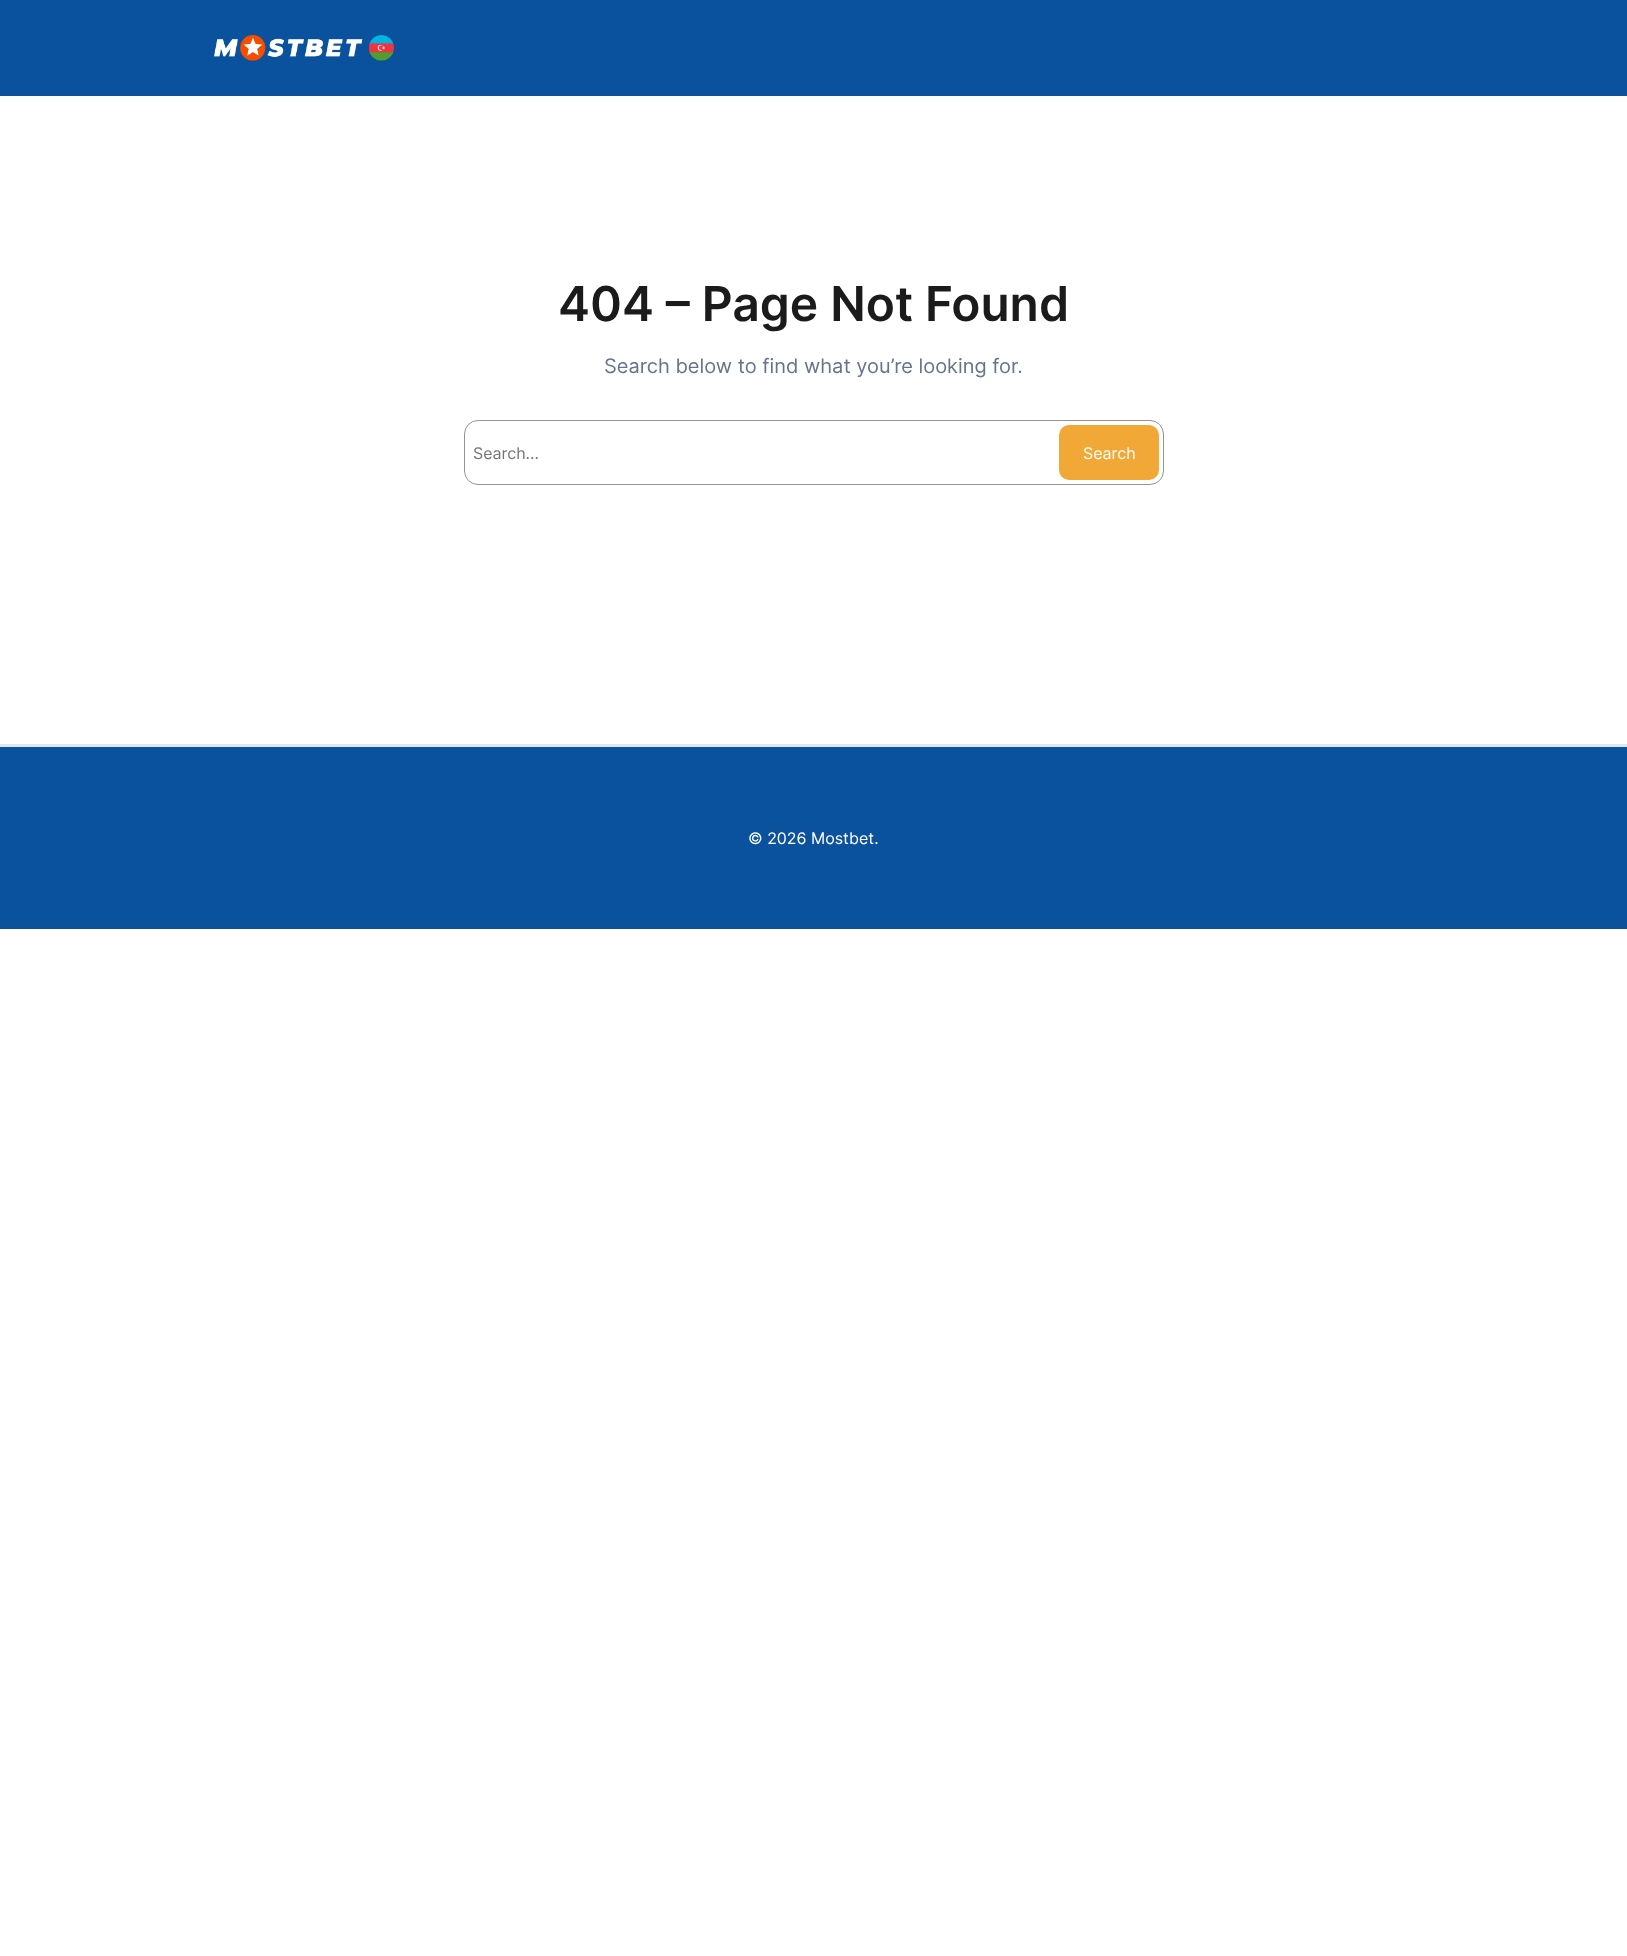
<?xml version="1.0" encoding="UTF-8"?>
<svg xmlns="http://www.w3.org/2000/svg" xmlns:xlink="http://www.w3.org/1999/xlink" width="1627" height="1956">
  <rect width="100%" height="100%" fill="#ffffff" />
  <rect width="1627" height="96" fill="#0a519e" />
  <image x="214" y="35" width="180" height="26" xlink:href="image1.png" />
  <rect x="464.5" y="420.5" width="699" height="64" rx="13.5" fill="none" stroke="#949494" />
  <rect x="1059" y="425" width="100" height="55" rx="10" fill="#f2a837" />
  <rect y="747" width="1627" height="182" fill="#0a519e" />
  <rect y="744" width="1627" height="3" fill="#e2e8f0" />
  <text x="558" y="321" style="font-family: Inter; font-size: 48px; font-weight: 600; fill: #1b1b1b">404 – Page Not Found</text>
  <text x="604" y="373" style="font-family: Inter; font-size: 20px; fill: #64748b">Search below to find what you’re looking for.</text>
  <text x="473" y="459" style="font-family: Inter; font-size: 16px; fill: #757575">Search...</text>
  <text x="1083" y="459" style="font-family: Inter; font-size: 16px; fill: #ffffff">Search</text>
  <text x="748" y="844" style="font-family: Inter; font-size: 16px; fill: #ffffff">© 2026 Mostbet.</text>
</svg>
